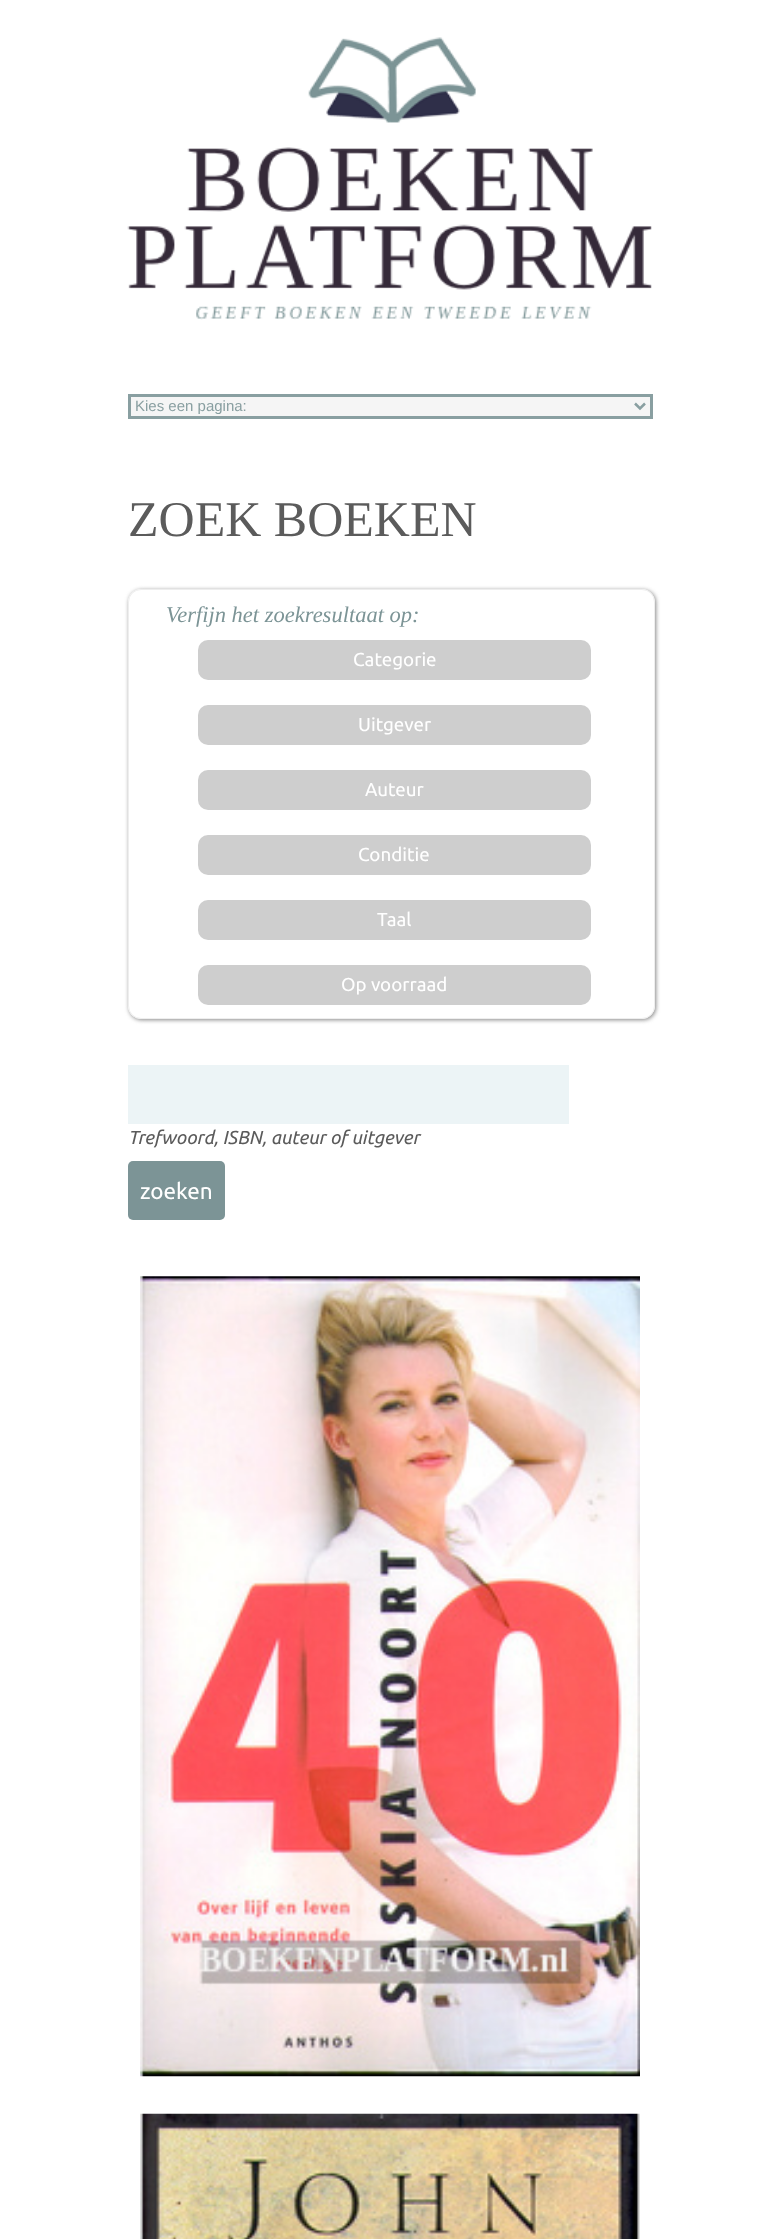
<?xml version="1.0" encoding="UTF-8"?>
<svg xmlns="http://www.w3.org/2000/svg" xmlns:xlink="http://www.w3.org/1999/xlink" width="779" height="2239">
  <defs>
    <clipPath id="clip1"><path d="M 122 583 h 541 v 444 h -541 z m 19 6 h 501 c 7 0 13 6 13 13 v 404 c 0 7 -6 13 -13 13 h -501 c -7 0 -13 -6 -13 -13 v -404 c 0 -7 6 -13 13 -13 z" clip-rule="evenodd" /></clipPath>
  </defs>
  <rect width="100%" height="100%" fill="#ffffff" />
  <image x="127" y="37" width="525" height="283" xlink:href="image1.png" />
  <rect x="129.5" y="395.5" width="522" height="22" fill="#f5f5f5" stroke="#899fa1" stroke-width="3" />
  <path d="M 635 403.5 l 5 5 l 5 -5" fill="none" stroke="#899fa1" stroke-width="2.5" />
  <g clip-path="url(#clip1)">
    <rect x="129" y="590" width="527" height="430" rx="13" fill="#888888" filter="blur(2px)" />
  </g>
  <rect x="128.5" y="589.5" width="526" height="429" rx="12.5" fill="none" stroke="#eeeeee" />
  <rect x="198" y="640" width="393" height="40" rx="10" fill="#cecece" />
  <rect x="198" y="705" width="393" height="40" rx="10" fill="#cecece" />
  <rect x="198" y="770" width="393" height="40" rx="10" fill="#cecece" />
  <rect x="198" y="835" width="393" height="40" rx="10" fill="#cecece" />
  <rect x="198" y="900" width="393" height="40" rx="10" fill="#cecece" />
  <rect x="198" y="965" width="393" height="40" rx="10" fill="#cecece" />
  <rect x="128" y="1065" width="441" height="59" fill="#ecf4f6" />
  <rect x="128" y="1161" width="97" height="59" rx="5" fill="#7c9496" />
  <image x="140" y="1276" width="500" height="801" xlink:href="image2.png" />
  <image x="140" y="2113" width="500" height="126" xlink:href="image3.png" />
  <text x="135" y="411" style="font-family: Liberation Sans; font-size: 15px; fill: #899fa1">Kies een pagina:</text>
  <text x="128" y="536" style="font-family: Tinos; font-size: 50px; fill: #5b5b5b">ZOEK BOEKEN</text>
  <text x="166" y="622" style="font-family: Tinos; font-size: 22.5px; font-style: italic; fill: #7c9496">Verfijn het zoekresultaat op:</text>
  <text x="353" y="666" style="font-family: Ubuntu; font-size: 18.75px; fill: #ffffff">Categorie</text>
  <text x="358" y="731" style="font-family: Ubuntu; font-size: 18.75px; fill: #ffffff">Uitgever</text>
  <text x="365" y="796" style="font-family: Ubuntu; font-size: 18.75px; fill: #ffffff">Auteur</text>
  <text x="358" y="861" style="font-family: Ubuntu; font-size: 18.75px; fill: #ffffff">Conditie</text>
  <text x="377" y="926" style="font-family: Ubuntu; font-size: 18.75px; fill: #ffffff">Taal</text>
  <text x="341" y="991" style="font-family: Ubuntu; font-size: 18.75px; fill: #ffffff">Op voorraad</text>
  <text x="128" y="1144" style="font-family: Ubuntu; font-size: 18.75px; font-style: italic; fill: #5b5b5b">Trefwoord, ISBN, auteur of uitgever</text>
  <text x="140" y="1199" style="font-family: Ubuntu; font-size: 22.5px; fill: #ffffff">zoeken</text>
</svg>
